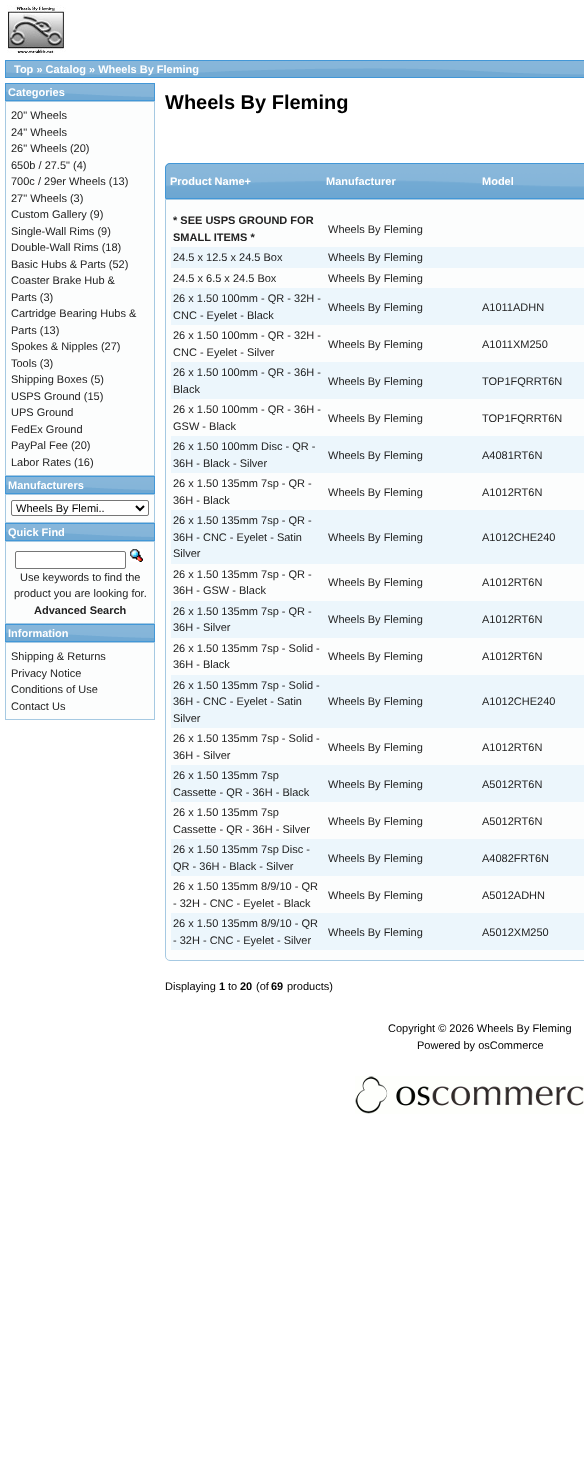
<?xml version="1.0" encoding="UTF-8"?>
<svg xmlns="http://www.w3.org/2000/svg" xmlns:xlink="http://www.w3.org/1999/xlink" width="584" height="1457">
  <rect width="100%" height="100%" fill="#ffffff" />
  <image x="7" y="5" width="59" height="50" xlink:href="image1.png" />
  <image x="6" y="61" width="578" height="16" xlink:href="image2.png" />
  <rect x="5.5" y="60.5" width="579" height="17" fill="none" stroke="#4297d7" />
  <image x="6" y="84" width="148" height="16" xlink:href="image3.png" />
  <rect x="5.5" y="83.5" width="149" height="17" fill="none" stroke="#4297d7" />
  <rect x="5.5" y="101.5" width="149" height="374" fill="#fcfdfd" stroke="#a6c9e2" />
  <image x="6" y="477" width="148" height="16" xlink:href="image3.png" />
  <rect x="5.5" y="476.5" width="149" height="17" fill="none" stroke="#4297d7" />
  <rect x="5.5" y="494.5" width="149" height="28" fill="#fcfdfd" stroke="#a6c9e2" />
  <rect x="11.5" y="500.5" width="137" height="15" rx="1.5" fill="#ffffff" stroke="#767676" />
  <path d="M 136 506 l 4 4 l 4 -4" fill="none" stroke="#000000" stroke-width="2" />
  <image x="6" y="524" width="148" height="16" xlink:href="image3.png" />
  <rect x="5.5" y="523.5" width="149" height="17" fill="none" stroke="#4297d7" />
  <rect x="5.5" y="541.5" width="149" height="82" fill="#fcfdfd" stroke="#a6c9e2" />
  <rect x="15.5" y="551.5" width="110" height="17" rx="1.5" fill="#ffffff" stroke="#767676" />
  <image x="130" y="549" width="13" height="13" xlink:href="image4.png" />
  <image x="6" y="625" width="148" height="16" xlink:href="image3.png" />
  <rect x="5.5" y="624.5" width="149" height="17" fill="none" stroke="#4297d7" />
  <rect x="5.5" y="642.5" width="149" height="77" fill="#fcfdfd" stroke="#a6c9e2" />
  <image x="165" y="163" width="419" height="35" xlink:href="image5.png" />
  <path d="M 170 163.5 h 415 c 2.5 0 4.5 2 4.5 4.5 v 30.5 h -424 v -30.5 c 0 -2.5 2 -4.5 4.5 -4.5 z" fill="none" stroke="#4297d7" />
  <path d="M 165.5 199.5 h 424 v 756.5 c 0 2.5 -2 4.5 -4.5 4.5 h -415 c -2.5 0 -4.5 -2 -4.5 -4.5 z" fill="#fcfdfd" stroke="#a6c9e2" />
  <rect x="171" y="247" width="413" height="21" fill="#ecf6fc" />
  <rect x="171" y="288" width="413" height="37" fill="#ecf6fc" />
  <rect x="171" y="362" width="413" height="37" fill="#ecf6fc" />
  <rect x="171" y="436" width="413" height="37" fill="#ecf6fc" />
  <rect x="171" y="510" width="413" height="54" fill="#ecf6fc" />
  <rect x="171" y="601" width="413" height="37" fill="#ecf6fc" />
  <rect x="171" y="675" width="413" height="53" fill="#ecf6fc" />
  <rect x="171" y="765" width="413" height="37" fill="#ecf6fc" />
  <rect x="171" y="839" width="413" height="37" fill="#ecf6fc" />
  <rect x="171" y="913" width="413" height="37" fill="#ecf6fc" />
  <image x="355" y="1076" width="229" height="38" xlink:href="image6.png" />
  <text x="14" y="73" style="font-family: Liberation Sans; font-size: 11px; font-weight: bold; fill: #ffffff">Top » Catalog » Wheels By Fleming</text>
  <text x="8" y="96" style="font-family: Liberation Sans; font-size: 11px; font-weight: bold; fill: #ffffff">Categories</text>
  <text x="11" y="119" style="font-family: Liberation Sans; font-size: 11px; fill: #222222">20" Wheels</text>
  <text x="11" y="136" style="font-family: Liberation Sans; font-size: 11px; fill: #222222">24" Wheels</text>
  <text x="11" y="152" style="font-family: Liberation Sans; font-size: 11px; fill: #222222">26" Wheels (20)</text>
  <text x="11" y="169" style="font-family: Liberation Sans; font-size: 11px; fill: #222222">650b / 27.5" (4)</text>
  <text x="11" y="185" style="font-family: Liberation Sans; font-size: 11px; fill: #222222">700c / 29er Wheels (13)</text>
  <text x="11" y="202" style="font-family: Liberation Sans; font-size: 11px; fill: #222222">27" Wheels (3)</text>
  <text x="11" y="218" style="font-family: Liberation Sans; font-size: 11px; fill: #222222">Custom Gallery (9)</text>
  <text x="11" y="235" style="font-family: Liberation Sans; font-size: 11px; fill: #222222">Single-Wall Rims (9)</text>
  <text x="11" y="251" style="font-family: Liberation Sans; font-size: 11px; fill: #222222">Double-Wall Rims (18)</text>
  <text x="11" y="268" style="font-family: Liberation Sans; font-size: 11px; fill: #222222">Basic Hubs &amp; Parts (52)</text>
  <text x="11" y="284" style="font-family: Liberation Sans; font-size: 11px; fill: #222222">Coaster Brake Hub &amp;</text>
  <text x="11" y="301" style="font-family: Liberation Sans; font-size: 11px; fill: #222222">Parts (3)</text>
  <text x="11" y="317" style="font-family: Liberation Sans; font-size: 11px; fill: #222222">Cartridge Bearing Hubs &amp;</text>
  <text x="11" y="334" style="font-family: Liberation Sans; font-size: 11px; fill: #222222">Parts (13)</text>
  <text x="11" y="350" style="font-family: Liberation Sans; font-size: 11px; fill: #222222">Spokes &amp; Nipples (27)</text>
  <text x="11" y="367" style="font-family: Liberation Sans; font-size: 11px; fill: #222222">Tools (3)</text>
  <text x="11" y="383" style="font-family: Liberation Sans; font-size: 11px; fill: #222222">Shipping Boxes (5)</text>
  <text x="11" y="400" style="font-family: Liberation Sans; font-size: 11px; fill: #222222">USPS Ground (15)</text>
  <text x="11" y="416" style="font-family: Liberation Sans; font-size: 11px; fill: #222222">UPS Ground</text>
  <text x="11" y="433" style="font-family: Liberation Sans; font-size: 11px; fill: #222222">FedEx Ground</text>
  <text x="11" y="449" style="font-family: Liberation Sans; font-size: 11px; fill: #222222">PayPal Fee (20)</text>
  <text x="11" y="466" style="font-family: Liberation Sans; font-size: 11px; fill: #222222">Labor Rates (16)</text>
  <text x="8" y="489" style="font-family: Liberation Sans; font-size: 11px; font-weight: bold; fill: #ffffff">Manufacturers</text>
  <text x="16" y="512" style="font-family: Liberation Sans; font-size: 11px; fill: #000000">Wheels By Flemi..</text>
  <text x="8" y="536" style="font-family: Liberation Sans; font-size: 11px; font-weight: bold; fill: #ffffff">Quick Find</text>
  <text x="20" y="581" style="font-family: Liberation Sans; font-size: 11px; fill: #222222">Use keywords to find the</text>
  <text x="14" y="597" style="font-family: Liberation Sans; font-size: 11px; fill: #222222">product you are looking for.</text>
  <text x="34" y="614" style="font-family: Liberation Sans; font-size: 11px; font-weight: bold; fill: #222222">Advanced Search</text>
  <text x="8" y="637" style="font-family: Liberation Sans; font-size: 11px; font-weight: bold; fill: #ffffff">Information</text>
  <text x="11" y="660" style="font-family: Liberation Sans; font-size: 11px; fill: #222222">Shipping &amp; Returns</text>
  <text x="11" y="677" style="font-family: Liberation Sans; font-size: 11px; fill: #222222">Privacy Notice</text>
  <text x="11" y="693" style="font-family: Liberation Sans; font-size: 11px; fill: #222222">Conditions of Use</text>
  <text x="11" y="710" style="font-family: Liberation Sans; font-size: 11px; fill: #222222">Contact Us</text>
  <text x="165" y="109" style="font-family: Liberation Sans; font-size: 20px; font-weight: bold; fill: #000000">Wheels By Fleming</text>
  <text x="170" y="185" style="font-family: Liberation Sans; font-size: 11px; font-weight: bold; fill: #ffffff">Product Name+</text>
  <text x="326" y="185" style="font-family: Liberation Sans; font-size: 11px; font-weight: bold; fill: #ffffff">Manufacturer</text>
  <text x="482" y="185" style="font-family: Liberation Sans; font-size: 11px; font-weight: bold; fill: #ffffff">Model</text>
  <text x="173" y="224" style="font-family: Liberation Sans; font-size: 11px; font-weight: bold; fill: #222222">* SEE USPS GROUND FOR</text>
  <text x="173" y="241" style="font-family: Liberation Sans; font-size: 11px; font-weight: bold; fill: #222222">SMALL ITEMS *</text>
  <text x="328" y="233" style="font-family: Liberation Sans; font-size: 11px; fill: #222222">Wheels By Fleming</text>
  <text x="173" y="261" style="font-family: Liberation Sans; font-size: 11px; fill: #222222">24.5 x 12.5 x 24.5 Box</text>
  <text x="328" y="261" style="font-family: Liberation Sans; font-size: 11px; fill: #222222">Wheels By Fleming</text>
  <text x="173" y="282" style="font-family: Liberation Sans; font-size: 11px; fill: #222222">24.5 x 6.5 x 24.5 Box</text>
  <text x="328" y="282" style="font-family: Liberation Sans; font-size: 11px; fill: #222222">Wheels By Fleming</text>
  <text x="173" y="302" style="font-family: Liberation Sans; font-size: 11px; fill: #222222">26 x 1.50 100mm - QR - 32H -</text>
  <text x="173" y="319" style="font-family: Liberation Sans; font-size: 11px; fill: #222222">CNC - Eyelet - Black</text>
  <text x="328" y="311" style="font-family: Liberation Sans; font-size: 11px; fill: #222222">Wheels By Fleming</text>
  <text x="482" y="311" style="font-family: Liberation Sans; font-size: 11px; fill: #222222">A1011ADHN</text>
  <text x="173" y="339" style="font-family: Liberation Sans; font-size: 11px; fill: #222222">26 x 1.50 100mm - QR - 32H -</text>
  <text x="173" y="356" style="font-family: Liberation Sans; font-size: 11px; fill: #222222">CNC - Eyelet - Silver</text>
  <text x="328" y="348" style="font-family: Liberation Sans; font-size: 11px; fill: #222222">Wheels By Fleming</text>
  <text x="482" y="348" style="font-family: Liberation Sans; font-size: 11px; fill: #222222">A1011XM250</text>
  <text x="173" y="376" style="font-family: Liberation Sans; font-size: 11px; fill: #222222">26 x 1.50 100mm - QR - 36H -</text>
  <text x="173" y="393" style="font-family: Liberation Sans; font-size: 11px; fill: #222222">Black</text>
  <text x="328" y="385" style="font-family: Liberation Sans; font-size: 11px; fill: #222222">Wheels By Fleming</text>
  <text x="482" y="385" style="font-family: Liberation Sans; font-size: 11px; fill: #222222">TOP1FQRRT6N</text>
  <text x="173" y="413" style="font-family: Liberation Sans; font-size: 11px; fill: #222222">26 x 1.50 100mm - QR - 36H -</text>
  <text x="173" y="430" style="font-family: Liberation Sans; font-size: 11px; fill: #222222">GSW - Black</text>
  <text x="328" y="422" style="font-family: Liberation Sans; font-size: 11px; fill: #222222">Wheels By Fleming</text>
  <text x="482" y="422" style="font-family: Liberation Sans; font-size: 11px; fill: #222222">TOP1FQRRT6N</text>
  <text x="173" y="450" style="font-family: Liberation Sans; font-size: 11px; fill: #222222">26 x 1.50 100mm Disc - QR -</text>
  <text x="173" y="467" style="font-family: Liberation Sans; font-size: 11px; fill: #222222">36H - Black - Silver</text>
  <text x="328" y="459" style="font-family: Liberation Sans; font-size: 11px; fill: #222222">Wheels By Fleming</text>
  <text x="482" y="459" style="font-family: Liberation Sans; font-size: 11px; fill: #222222">A4081RT6N</text>
  <text x="173" y="487" style="font-family: Liberation Sans; font-size: 11px; fill: #222222">26 x 1.50 135mm 7sp - QR -</text>
  <text x="173" y="504" style="font-family: Liberation Sans; font-size: 11px; fill: #222222">36H - Black</text>
  <text x="328" y="496" style="font-family: Liberation Sans; font-size: 11px; fill: #222222">Wheels By Fleming</text>
  <text x="482" y="496" style="font-family: Liberation Sans; font-size: 11px; fill: #222222">A1012RT6N</text>
  <text x="173" y="524" style="font-family: Liberation Sans; font-size: 11px; fill: #222222">26 x 1.50 135mm 7sp - QR -</text>
  <text x="173" y="541" style="font-family: Liberation Sans; font-size: 11px; fill: #222222">36H - CNC - Eyelet - Satin</text>
  <text x="173" y="557" style="font-family: Liberation Sans; font-size: 11px; fill: #222222">Silver</text>
  <text x="328" y="541" style="font-family: Liberation Sans; font-size: 11px; fill: #222222">Wheels By Fleming</text>
  <text x="482" y="541" style="font-family: Liberation Sans; font-size: 11px; fill: #222222">A1012CHE240</text>
  <text x="173" y="578" style="font-family: Liberation Sans; font-size: 11px; fill: #222222">26 x 1.50 135mm 7sp - QR -</text>
  <text x="173" y="594" style="font-family: Liberation Sans; font-size: 11px; fill: #222222">36H - GSW - Black</text>
  <text x="328" y="586" style="font-family: Liberation Sans; font-size: 11px; fill: #222222">Wheels By Fleming</text>
  <text x="482" y="586" style="font-family: Liberation Sans; font-size: 11px; fill: #222222">A1012RT6N</text>
  <text x="173" y="615" style="font-family: Liberation Sans; font-size: 11px; fill: #222222">26 x 1.50 135mm 7sp - QR -</text>
  <text x="173" y="631" style="font-family: Liberation Sans; font-size: 11px; fill: #222222">36H - Silver</text>
  <text x="328" y="623" style="font-family: Liberation Sans; font-size: 11px; fill: #222222">Wheels By Fleming</text>
  <text x="482" y="623" style="font-family: Liberation Sans; font-size: 11px; fill: #222222">A1012RT6N</text>
  <text x="173" y="652" style="font-family: Liberation Sans; font-size: 11px; fill: #222222">26 x 1.50 135mm 7sp - Solid -</text>
  <text x="173" y="668" style="font-family: Liberation Sans; font-size: 11px; fill: #222222">36H - Black</text>
  <text x="328" y="660" style="font-family: Liberation Sans; font-size: 11px; fill: #222222">Wheels By Fleming</text>
  <text x="482" y="660" style="font-family: Liberation Sans; font-size: 11px; fill: #222222">A1012RT6N</text>
  <text x="173" y="689" style="font-family: Liberation Sans; font-size: 11px; fill: #222222">26 x 1.50 135mm 7sp - Solid -</text>
  <text x="173" y="705" style="font-family: Liberation Sans; font-size: 11px; fill: #222222">36H - CNC - Eyelet - Satin</text>
  <text x="173" y="722" style="font-family: Liberation Sans; font-size: 11px; fill: #222222">Silver</text>
  <text x="328" y="705" style="font-family: Liberation Sans; font-size: 11px; fill: #222222">Wheels By Fleming</text>
  <text x="482" y="705" style="font-family: Liberation Sans; font-size: 11px; fill: #222222">A1012CHE240</text>
  <text x="173" y="742" style="font-family: Liberation Sans; font-size: 11px; fill: #222222">26 x 1.50 135mm 7sp - Solid -</text>
  <text x="173" y="759" style="font-family: Liberation Sans; font-size: 11px; fill: #222222">36H - Silver</text>
  <text x="328" y="751" style="font-family: Liberation Sans; font-size: 11px; fill: #222222">Wheels By Fleming</text>
  <text x="482" y="751" style="font-family: Liberation Sans; font-size: 11px; fill: #222222">A1012RT6N</text>
  <text x="173" y="779" style="font-family: Liberation Sans; font-size: 11px; fill: #222222">26 x 1.50 135mm 7sp</text>
  <text x="173" y="796" style="font-family: Liberation Sans; font-size: 11px; fill: #222222">Cassette - QR - 36H - Black</text>
  <text x="328" y="788" style="font-family: Liberation Sans; font-size: 11px; fill: #222222">Wheels By Fleming</text>
  <text x="482" y="788" style="font-family: Liberation Sans; font-size: 11px; fill: #222222">A5012RT6N</text>
  <text x="173" y="816" style="font-family: Liberation Sans; font-size: 11px; fill: #222222">26 x 1.50 135mm 7sp</text>
  <text x="173" y="833" style="font-family: Liberation Sans; font-size: 11px; fill: #222222">Cassette - QR - 36H - Silver</text>
  <text x="328" y="825" style="font-family: Liberation Sans; font-size: 11px; fill: #222222">Wheels By Fleming</text>
  <text x="482" y="825" style="font-family: Liberation Sans; font-size: 11px; fill: #222222">A5012RT6N</text>
  <text x="173" y="853" style="font-family: Liberation Sans; font-size: 11px; fill: #222222">26 x 1.50 135mm 7sp Disc -</text>
  <text x="173" y="870" style="font-family: Liberation Sans; font-size: 11px; fill: #222222">QR - 36H - Black - Silver</text>
  <text x="328" y="862" style="font-family: Liberation Sans; font-size: 11px; fill: #222222">Wheels By Fleming</text>
  <text x="482" y="862" style="font-family: Liberation Sans; font-size: 11px; fill: #222222">A4082FRT6N</text>
  <text x="173" y="890" style="font-family: Liberation Sans; font-size: 11px; fill: #222222">26 x 1.50 135mm 8/9/10 - QR</text>
  <text x="173" y="907" style="font-family: Liberation Sans; font-size: 11px; fill: #222222">- 32H - CNC - Eyelet - Black</text>
  <text x="328" y="899" style="font-family: Liberation Sans; font-size: 11px; fill: #222222">Wheels By Fleming</text>
  <text x="482" y="899" style="font-family: Liberation Sans; font-size: 11px; fill: #222222">A5012ADHN</text>
  <text x="173" y="927" style="font-family: Liberation Sans; font-size: 11px; fill: #222222">26 x 1.50 135mm 8/9/10 - QR</text>
  <text x="173" y="944" style="font-family: Liberation Sans; font-size: 11px; fill: #222222">- 32H - CNC - Eyelet - Silver</text>
  <text x="328" y="936" style="font-family: Liberation Sans; font-size: 11px; fill: #222222">Wheels By Fleming</text>
  <text x="482" y="936" style="font-family: Liberation Sans; font-size: 11px; fill: #222222">A5012XM250</text>
  <text x="165" y="990" style="font-family: Liberation Sans; font-size: 11px; fill: #000000">Displaying</text>
  <text x="219" y="990" style="font-family: Liberation Sans; font-size: 11px; font-weight: bold; fill: #000000">1</text>
  <text x="228" y="990" style="font-family: Liberation Sans; font-size: 11px; fill: #000000">to</text>
  <text x="240" y="990" style="font-family: Liberation Sans; font-size: 11px; font-weight: bold; fill: #000000">20</text>
  <text x="256" y="990" style="font-family: Liberation Sans; font-size: 11px; fill: #000000">(of</text>
  <text x="271" y="990" style="font-family: Liberation Sans; font-size: 11px; font-weight: bold; fill: #000000">69</text>
  <text x="287" y="990" style="font-family: Liberation Sans; font-size: 11px; fill: #000000">products)</text>
  <text x="388" y="1032" style="font-family: Liberation Sans; font-size: 11px; fill: #000000">Copyright © 2026 Wheels By Fleming</text>
  <text x="417" y="1049" style="font-family: Liberation Sans; font-size: 11px; fill: #000000">Powered by osCommerce</text>
</svg>
